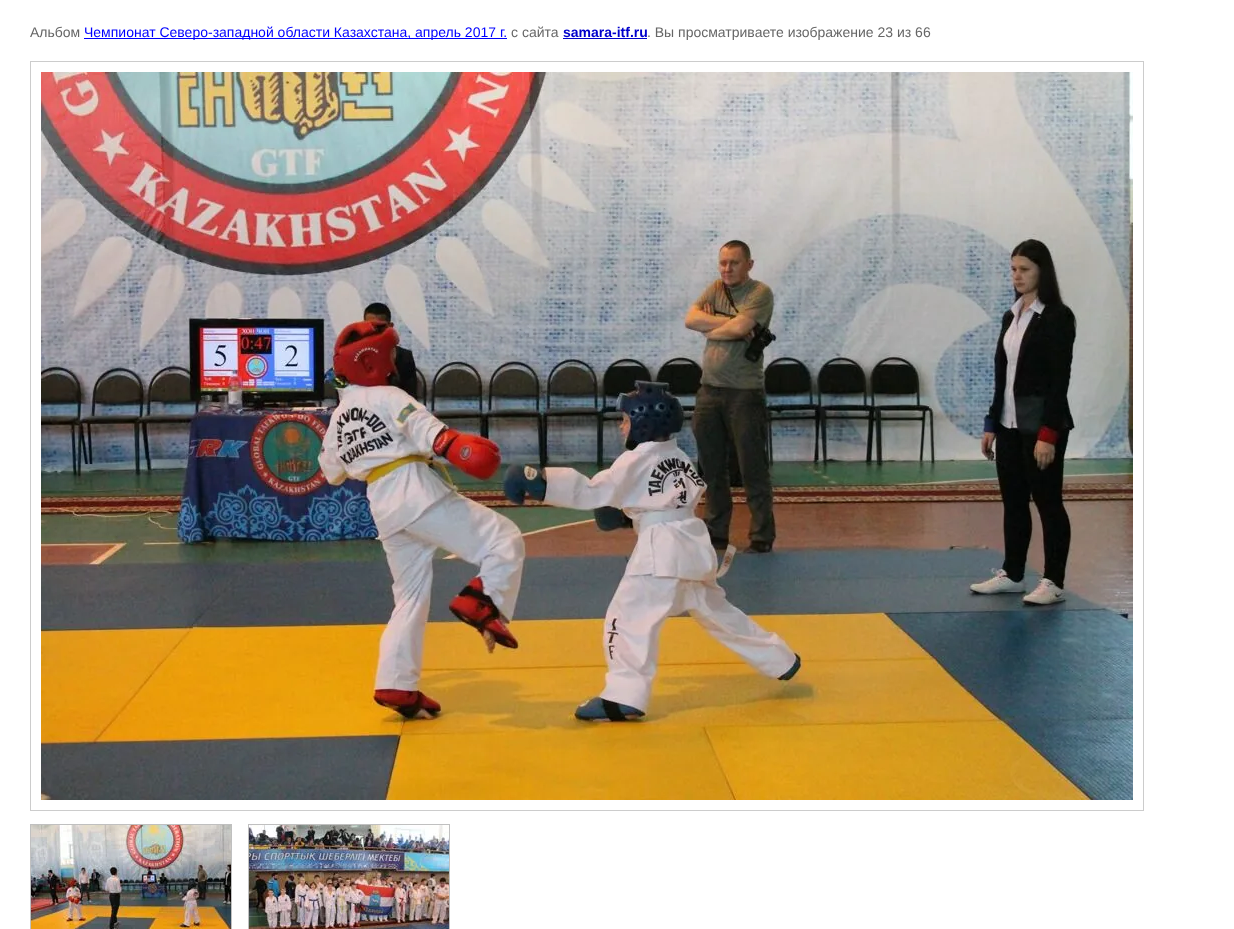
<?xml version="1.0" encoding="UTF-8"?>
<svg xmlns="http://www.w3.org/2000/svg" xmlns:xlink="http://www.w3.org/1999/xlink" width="1234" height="929">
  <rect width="100%" height="100%" fill="#ffffff" />
  <rect x="84" y="38" width="423" height="1" fill="#0000ff" />
  <rect x="563" y="38" width="84" height="1" fill="#0000cc" />
  <rect x="30.5" y="61.5" width="1113" height="749" fill="none" stroke="#cccccc" />
  <image x="41" y="72" width="1092" height="728" xlink:href="image1.png" />
  <rect x="30.5" y="824.5" width="201" height="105" fill="none" stroke="#c0c0c0" />
  <image x="31" y="825" width="200" height="104" xlink:href="image2.png" />
  <rect x="248.5" y="824.5" width="201" height="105" fill="none" stroke="#c0c0c0" />
  <image x="249" y="825" width="200" height="104" xlink:href="image3.png" />
  <text x="30" y="37" style="font-family: Liberation Sans; font-size: 14px; fill: #666666">Альбом</text>
  <text x="84" y="37" style="font-family: Liberation Sans; font-size: 14px; fill: #0000ff">Чемпионат Северо-западной области Казахстана, апрель 2017 г.</text>
  <text x="511" y="37" style="font-family: Liberation Sans; font-size: 14px; fill: #666666">с сайта</text>
  <text x="563" y="37" style="font-family: Liberation Sans; font-size: 14px; font-weight: bold; fill: #0000cc">samara-itf.ru</text>
  <text x="647" y="37" style="font-family: Liberation Sans; font-size: 14px; fill: #666666">. Вы просматриваете изображение 23 из 66</text>
</svg>
